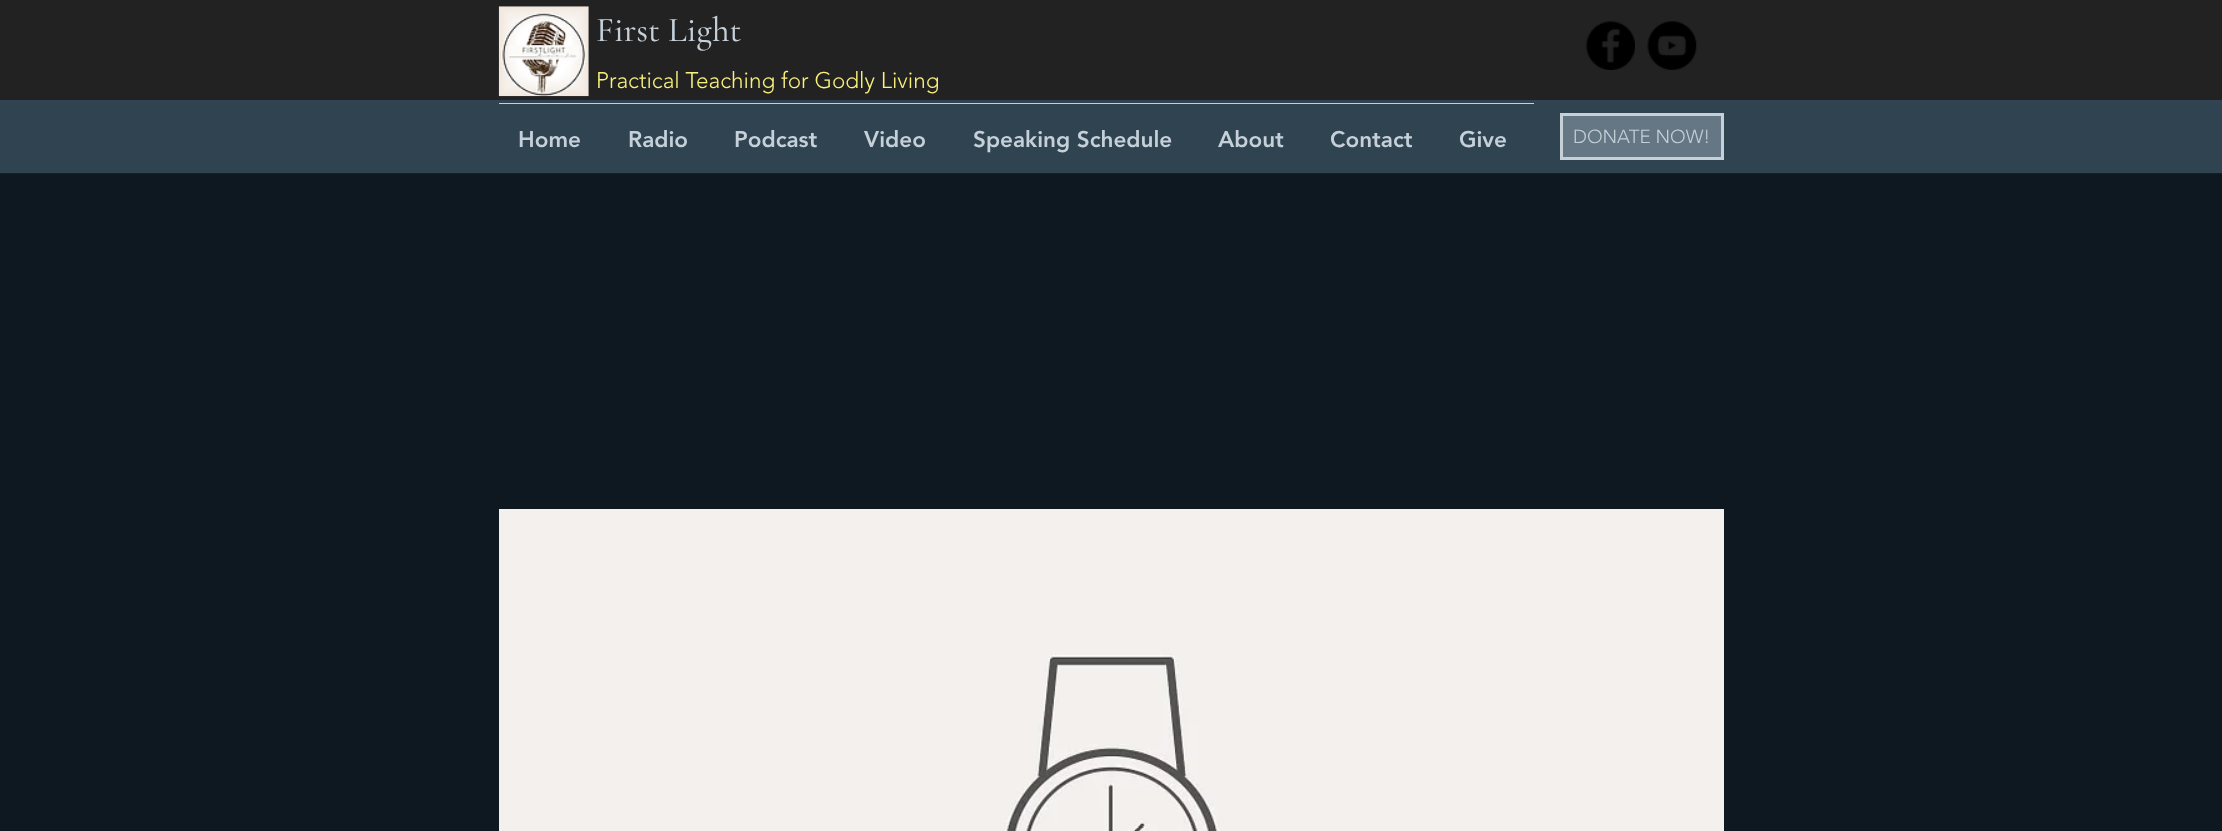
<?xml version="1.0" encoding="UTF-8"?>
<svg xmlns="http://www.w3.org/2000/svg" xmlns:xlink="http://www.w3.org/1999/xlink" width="2222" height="831">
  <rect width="100%" height="100%" fill="#1b1f22" />
  <rect width="2222" height="100" fill="#222223" />
  <rect y="100" width="2222" height="3" fill="#324451" />
  <image x="498" y="6" width="91" height="91" xlink:href="image1.png" />
  <image x="1586" y="21" width="49" height="49" xlink:href="image2.png" />
  <image x="1647" y="21" width="50" height="49" xlink:href="image3.png" />
  <rect y="103" width="2222" height="70" fill="#304350" />
  <rect x="499" y="103" width="1035" height="1" fill="#c5d0d9" />
  <rect x="1561.5" y="114.5" width="161" height="44" fill="#657785" stroke="#c5d0d9" stroke-width="3" />
  <rect y="174" width="2222" height="657" fill="#0e1821" />
  <image x="499" y="509" width="1225" height="322" xlink:href="image4.png" />
  <text x="596" y="41" style="font-family: Cormorant Garamond; font-size: 35px; font-weight: 500; fill: #c5d0d9">First Light</text>
  <text x="596" y="88" style="font-family: 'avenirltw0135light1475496'; font-size: 22.5px; font-weight: 300; fill: #faf17c">Practical Teaching for Godly Living</text>
  <text x="518" y="147" style="font-family: 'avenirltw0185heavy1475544'; font-size: 22.5px; font-weight: 900; fill: #c5d0d9">Home</text>
  <text x="628" y="147" style="font-family: 'avenirltw0185heavy1475544'; font-size: 22.5px; font-weight: 900; fill: #c5d0d9">Radio</text>
  <text x="734" y="147" style="font-family: 'avenirltw0185heavy1475544'; font-size: 22.5px; font-weight: 900; fill: #c5d0d9">Podcast</text>
  <text x="864" y="147" style="font-family: 'avenirltw0185heavy1475544'; font-size: 22.5px; font-weight: 900; fill: #c5d0d9">Video</text>
  <text x="973" y="147" style="font-family: 'avenirltw0185heavy1475544'; font-size: 22.5px; font-weight: 900; fill: #c5d0d9">Speaking Schedule</text>
  <text x="1218" y="147" style="font-family: 'avenirltw0185heavy1475544'; font-size: 22.5px; font-weight: 900; fill: #c5d0d9">About</text>
  <text x="1330" y="147" style="font-family: 'avenirltw0185heavy1475544'; font-size: 22.5px; font-weight: 900; fill: #c5d0d9">Contact</text>
  <text x="1459" y="147" style="font-family: 'avenirltw0185heavy1475544'; font-size: 22.5px; font-weight: 900; fill: #c5d0d9">Give</text>
  <text x="1573" y="143" style="font-family: 'avenirltw0135light1475496'; font-size: 18.75px; font-weight: 300; fill: #c5d0d9">DONATE NOW!</text>
</svg>
